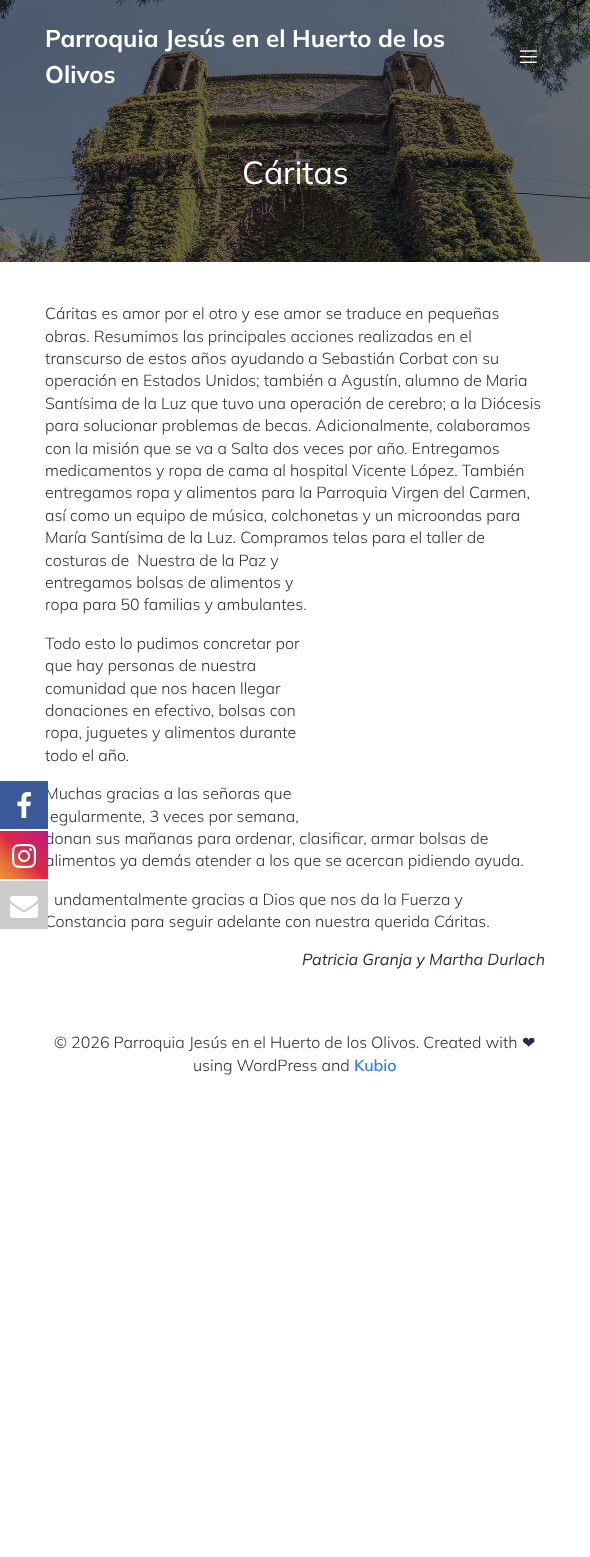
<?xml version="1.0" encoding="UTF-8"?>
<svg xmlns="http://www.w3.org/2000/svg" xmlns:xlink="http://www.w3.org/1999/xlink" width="590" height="1557">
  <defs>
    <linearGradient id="g1" gradientUnits="userSpaceOnUse" x1="0" y1="879" x2="48" y2="831"><stop offset="0" stop-color="#f09433" /><stop offset="0.25" stop-color="#e6683c" /><stop offset="0.5" stop-color="#dc2743" /><stop offset="0.75" stop-color="#cc2366" /><stop offset="1" stop-color="#bc1888" /></linearGradient>
  </defs>
  <rect width="100%" height="100%" fill="#ffffff" />
  <image x="0" y="0" width="590" height="262" xlink:href="image5.png" />
  <image x="519" y="50" width="18" height="13" xlink:href="image4.png" />
  <text x="45" y="47" style="font-family: Mulish; font-size: 24px; font-weight: bold; fill: #ffffff">Parroquia Jesús en el Huerto de los</text>
  <text x="45" y="83" style="font-family: Mulish; font-size: 24px; font-weight: bold; fill: #ffffff">Olivos</text>
  <text x="242" y="184" style="font-family: Mulish; font-size: 32px; fill: #ffffff">Cáritas</text>
  <text x="45" y="319" style="font-family: Mulish; font-size: 16px; font-weight: 300; fill: #2b2d42">Cáritas es amor por el otro y ese amor se traduce en pequeñas</text>
  <text x="45" y="342" style="font-family: Mulish; font-size: 16px; font-weight: 300; fill: #2b2d42">obras. Resumimos las principales acciones realizadas en el</text>
  <text x="45" y="364" style="font-family: Mulish; font-size: 16px; font-weight: 300; fill: #2b2d42">transcurso de estos años ayudando a Sebastián Corbat con su</text>
  <text x="45" y="386" style="font-family: Mulish; font-size: 16px; font-weight: 300; fill: #2b2d42">operación en Estados Unidos; también a Agustín, alumno de Maria</text>
  <text x="45" y="409" style="font-family: Mulish; font-size: 16px; font-weight: 300; fill: #2b2d42">Santísima de la Luz que tuvo una operación de cerebro; a la Diócesis</text>
  <text x="45" y="431" style="font-family: Mulish; font-size: 16px; font-weight: 300; fill: #2b2d42">para solucionar problemas de becas. Adicionalmente, colaboramos</text>
  <text x="45" y="454" style="font-family: Mulish; font-size: 16px; font-weight: 300; fill: #2b2d42">con la misión que se va a Salta dos veces por año. Entregamos</text>
  <text x="45" y="476" style="font-family: Mulish; font-size: 16px; font-weight: 300; fill: #2b2d42">medicamentos y ropa de cama al hospital Vicente López. También</text>
  <text x="45" y="498" style="font-family: Mulish; font-size: 16px; font-weight: 300; fill: #2b2d42">entregamos ropa y alimentos para la Parroquia Virgen del Carmen,</text>
  <text x="45" y="521" style="font-family: Mulish; font-size: 16px; font-weight: 300; fill: #2b2d42">así como un equipo de música, colchonetas y un microondas para</text>
  <text x="45" y="543" style="font-family: Mulish; font-size: 16px; font-weight: 300; fill: #2b2d42">María Santísima de la Luz. Compramos telas para el taller de</text>
  <text x="45" y="566" style="font-family: Mulish; font-size: 16px; font-weight: 300; fill: #2b2d42" xml:space="preserve">costuras de  Nuestra de la Paz y</text>
  <text x="45" y="588" style="font-family: Mulish; font-size: 16px; font-weight: 300; fill: #2b2d42">entregamos bolsas de alimentos y</text>
  <text x="45" y="610" style="font-family: Mulish; font-size: 16px; font-weight: 300; fill: #2b2d42">ropa para 50 familias y ambulantes.</text>
  <text x="45" y="649" style="font-family: Mulish; font-size: 16px; font-weight: 300; fill: #2b2d42">Todo esto lo pudimos concretar por</text>
  <text x="45" y="671" style="font-family: Mulish; font-size: 16px; font-weight: 300; fill: #2b2d42">que hay personas de nuestra</text>
  <text x="45" y="694" style="font-family: Mulish; font-size: 16px; font-weight: 300; fill: #2b2d42">comunidad que nos hacen llegar</text>
  <text x="45" y="716" style="font-family: Mulish; font-size: 16px; font-weight: 300; fill: #2b2d42">donaciones en efectivo, bolsas con</text>
  <text x="45" y="738" style="font-family: Mulish; font-size: 16px; font-weight: 300; fill: #2b2d42">ropa, juguetes y alimentos durante</text>
  <text x="45" y="761" style="font-family: Mulish; font-size: 16px; font-weight: 300; fill: #2b2d42">todo el año.</text>
  <text x="45" y="799" style="font-family: Mulish; font-size: 16px; font-weight: 300; fill: #2b2d42">Muchas gracias a las señoras que</text>
  <rect y="781" width="48" height="48" fill="#3b5998" />
  <image x="17" y="792" width="14" height="26" xlink:href="image1.png" />
  <text x="50" y="822" style="font-family: Mulish; font-size: 16px; font-weight: 300; fill: #2b2d42">egularmente, 3 veces por semana,</text>
  <text x="45" y="844" style="font-family: Mulish; font-size: 16px; font-weight: 300; fill: #2b2d42">donan sus mañanas para ordenar, clasificar, armar bolsas de</text>
  <text x="45" y="866" style="font-family: Mulish; font-size: 16px; font-weight: 300; fill: #2b2d42">alimentos ya demás atender a los que se acercan pidiendo ayuda.</text>
  <rect y="831" width="48" height="48" fill="url(#g1)" />
  <image x="12" y="844" width="24" height="24" xlink:href="image2.png" />
  <text x="54" y="905" style="font-family: Mulish; font-size: 16px; font-weight: 300; fill: #2b2d42">undamentalmente gracias a Dios que nos da la Fuerza y</text>
  <text x="45" y="927" style="font-family: Mulish; font-size: 16px; font-weight: 300; fill: #2b2d42">Constancia para seguir adelante con nuestra querida Cáritas.</text>
  <rect y="881" width="48" height="48" fill="#cccccc" />
  <image x="10" y="896" width="28" height="22" xlink:href="image3.png" />
  <text x="302" y="965" style="font-family: Mulish; font-size: 16px; font-style: italic; fill: #2b2d42">Patricia Granja y Martha Durlach</text>
  <text x="54" y="1048" style="font-family: Mulish; font-size: 16px; font-weight: 300; fill: #2b2d42">© 2026 Parroquia Jesús en el Huerto de los Olivos. Created with</text>
  <text x="522" y="1048" style="font-family: DejaVu Sans; font-size: 16px; fill: #2b2d42">❤</text>
  <text x="193" y="1071" style="font-family: Mulish; font-size: 16px; font-weight: 300; fill: #2b2d42">using WordPress and</text>
  <text x="354" y="1071" style="font-family: Mulish; font-size: 16px; font-weight: 600; fill: #2f7cff">Kubio</text>
</svg>
